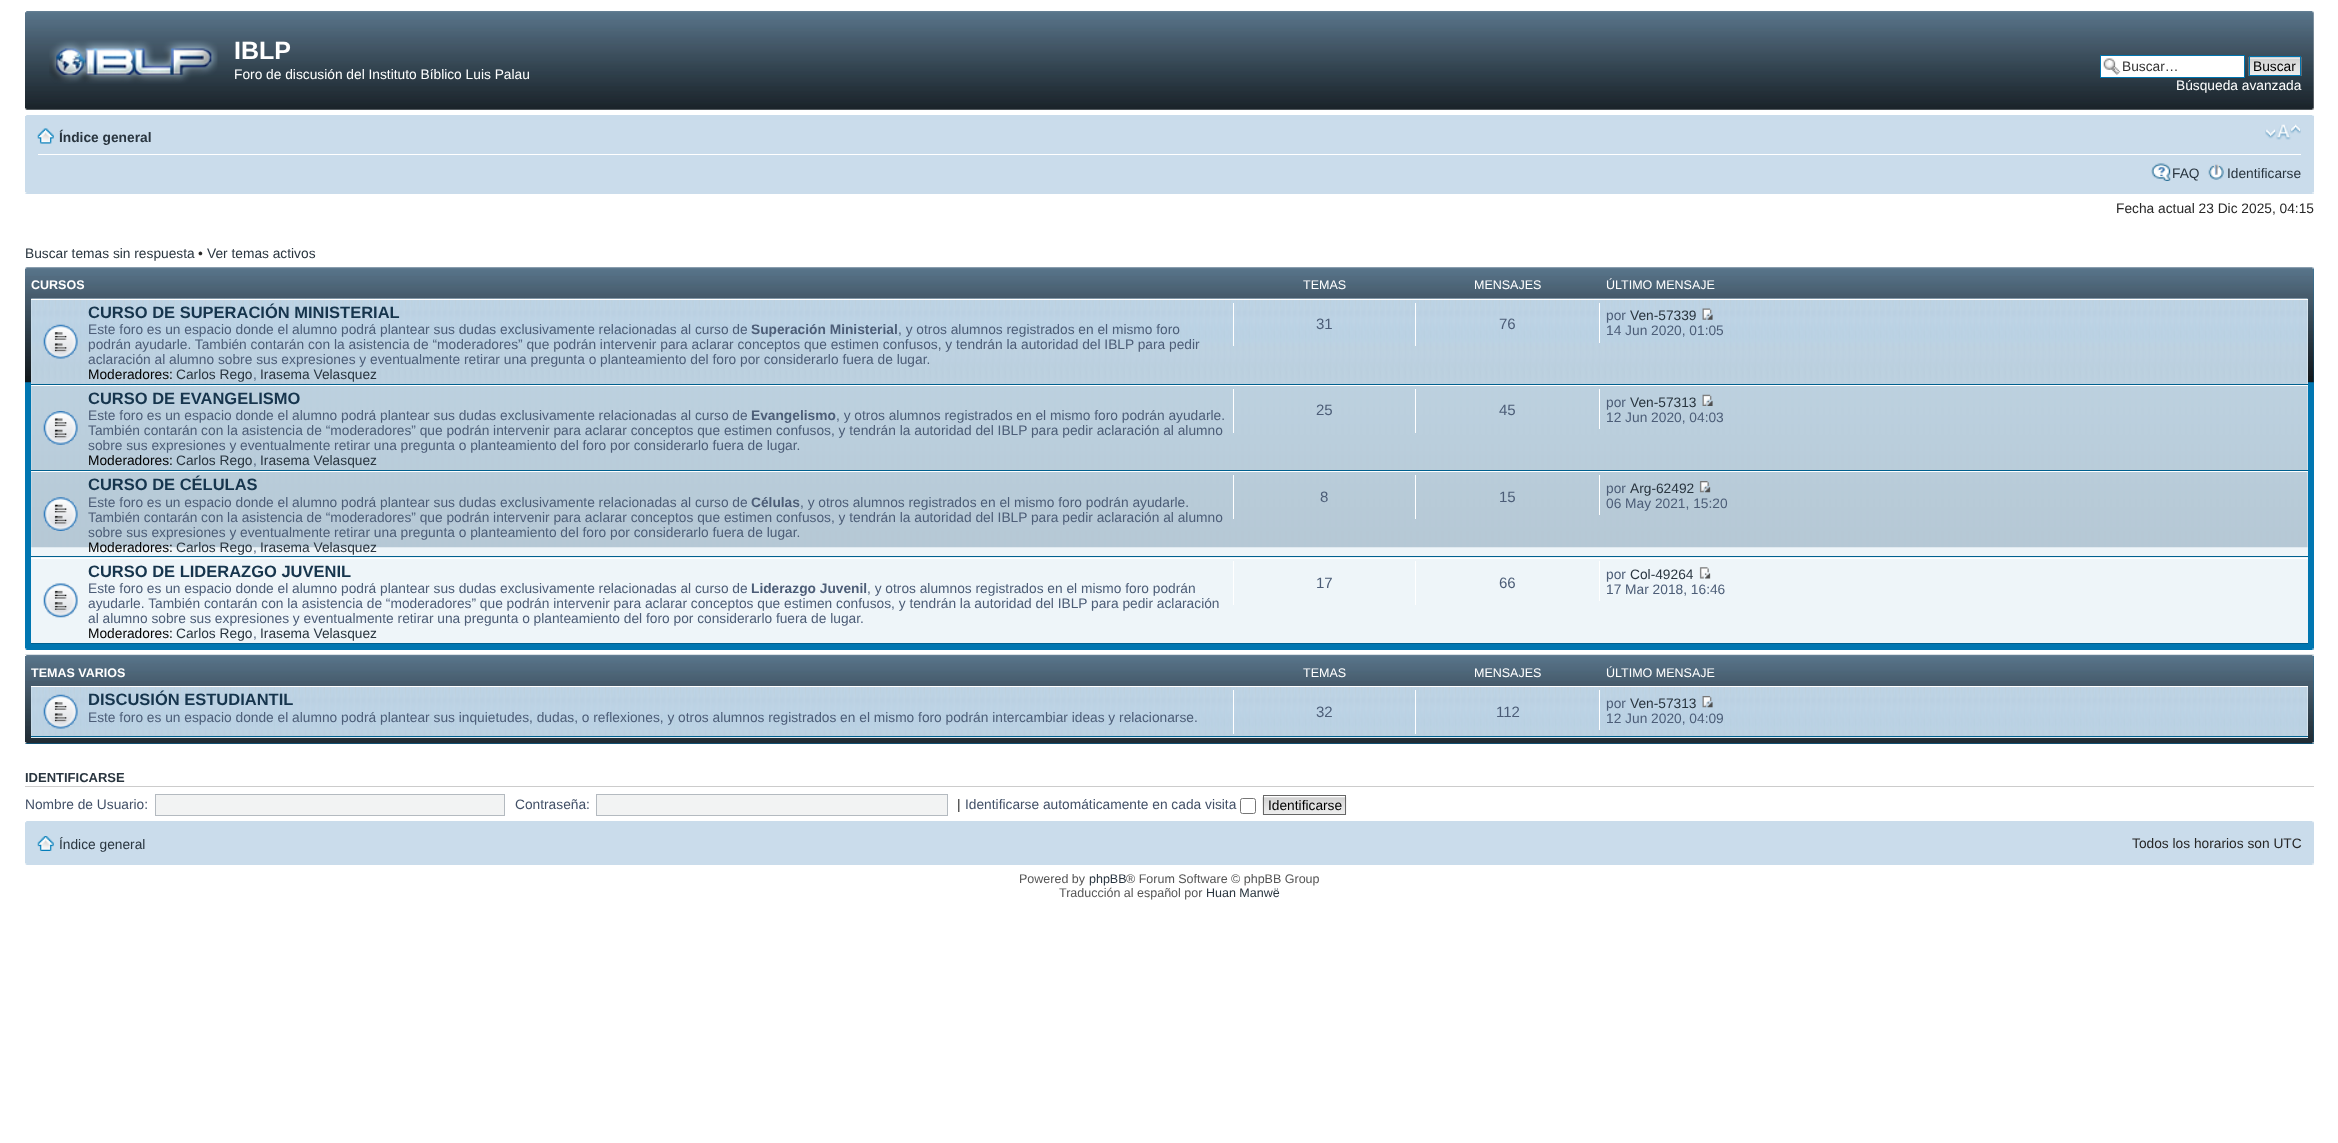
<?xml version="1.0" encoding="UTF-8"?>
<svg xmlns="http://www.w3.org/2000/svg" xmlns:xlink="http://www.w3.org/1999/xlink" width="2338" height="1143">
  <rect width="100%" height="100%" fill="#ffffff" />
  <image x="25" y="11" width="2289" height="99" xlink:href="image1.png" />
  <image x="25" y="11" width="2" height="2" xlink:href="image2.png" />
  <image x="2312" y="11" width="2" height="2" xlink:href="image3.png" />
  <image x="49" y="40" width="169" height="44" xlink:href="image4.png" />
  <rect x="2101" y="56" width="143" height="21" fill="#ffffff" />
  <image x="2103" y="58" width="18" height="17" xlink:href="image5.png" />
  <rect x="2100.5" y="55.5" width="144" height="22" fill="none" stroke="#0075b0" />
  <image x="2248" y="57" width="54" height="19" xlink:href="image6.png" />
  <rect x="2249.5" y="56.5" width="51" height="19" fill="none" stroke="#0075b0" />
  <image x="25" y="108" width="2" height="2" xlink:href="image7.png" />
  <image x="2312" y="108" width="2" height="2" xlink:href="image8.png" />
  <rect x="25" y="115" width="2289" height="79" fill="#cadceb" />
  <image x="25" y="115" width="2" height="1" xlink:href="image9.png" />
  <image x="2312" y="115" width="2" height="1" xlink:href="image10.png" />
  <rect x="38" y="154" width="2263" height="1" fill="#ffffff" />
  <image x="37" y="128" width="17" height="16" xlink:href="image11.png" />
  <image x="2265" y="124" width="36" height="16" xlink:href="image12.png" />
  <image x="2151" y="163" width="20" height="18" xlink:href="image13.png" />
  <image x="2208" y="164" width="16" height="16" xlink:href="image14.png" />
  <image x="25" y="192" width="2" height="2" xlink:href="image15.png" />
  <image x="2312" y="192" width="2" height="2" xlink:href="image16.png" />
  <rect x="25" y="268" width="2289" height="382" fill="#0076b1" />
  <image x="25" y="267" width="2289" height="116" xlink:href="image17.png" />
  <image x="25" y="267" width="2" height="2" xlink:href="image18.png" />
  <image x="2312" y="267" width="2" height="2" xlink:href="image19.png" />
  <rect x="31" y="300" width="2277" height="343" fill="#eef5f9" />
  <image x="31" y="298" width="2277" height="250" xlink:href="image20.png" />
  <rect x="31" y="299" width="2277" height="1" fill="#ffffff" />
  <rect x="31" y="384" width="2277" height="1" fill="#00608f" />
  <image x="43" y="324" width="35" height="35" xlink:href="image21.png" />
  <rect x="1233" y="303" width="1" height="43" fill="#ffffff" />
  <rect x="1415" y="303" width="1" height="43" fill="#ffffff" />
  <rect x="1599" y="303" width="1" height="40" fill="#ffffff" />
  <image x="1702" y="308" width="11" height="12" xlink:href="image22.png" />
  <rect x="31" y="385" width="2277" height="1" fill="#ffffff" />
  <rect x="31" y="470" width="2277" height="1" fill="#00608f" />
  <image x="43" y="411" width="35" height="34" xlink:href="image23.png" />
  <rect x="1233" y="389" width="1" height="44" fill="#ffffff" />
  <rect x="1415" y="389" width="1" height="44" fill="#ffffff" />
  <rect x="1599" y="389" width="1" height="40" fill="#ffffff" />
  <image x="1702" y="394" width="11" height="12" xlink:href="image24.png" />
  <rect x="31" y="471" width="2277" height="1" fill="#ffffff" />
  <rect x="31" y="556" width="2277" height="1" fill="#00608f" />
  <image x="43" y="497" width="35" height="34" xlink:href="image25.png" />
  <rect x="1233" y="475" width="1" height="44" fill="#ffffff" />
  <rect x="1415" y="475" width="1" height="44" fill="#ffffff" />
  <rect x="1599" y="475" width="1" height="40" fill="#ffffff" />
  <image x="1699" y="481" width="12" height="12" xlink:href="image26.png" />
  <rect x="31" y="558" width="2277" height="1" fill="#ffffff" />
  <rect x="31" y="643" width="2277" height="1" fill="#00608f" />
  <image x="43" y="583" width="35" height="35" xlink:href="image27.png" />
  <rect x="1233" y="561" width="1" height="44" fill="#ffffff" />
  <rect x="1415" y="561" width="1" height="44" fill="#ffffff" />
  <rect x="1599" y="561" width="1" height="40" fill="#ffffff" />
  <image x="1699" y="567" width="12" height="12" xlink:href="image28.png" />
  <image x="25" y="648" width="2" height="2" xlink:href="image29.png" />
  <image x="2312" y="648" width="2" height="2" xlink:href="image30.png" />
  <rect x="25" y="655" width="2289" height="89" fill="#0076b1" />
  <image x="25" y="654" width="2289" height="90" xlink:href="image31.png" />
  <image x="25" y="654" width="2" height="2" xlink:href="image32.png" />
  <image x="2312" y="654" width="2" height="2" xlink:href="image33.png" />
  <rect x="31" y="687" width="2277" height="51" fill="#eef5f9" />
  <image x="31" y="687" width="2277" height="51" xlink:href="image34.png" />
  <rect x="31" y="686" width="2277" height="1" fill="#ffffff" />
  <rect x="31" y="736" width="2277" height="1" fill="#00608f" />
  <image x="43" y="694" width="35" height="35" xlink:href="image35.png" />
  <rect x="1233" y="690" width="1" height="44" fill="#ffffff" />
  <rect x="1415" y="690" width="1" height="44" fill="#ffffff" />
  <rect x="1599" y="690" width="1" height="40" fill="#ffffff" />
  <image x="1702" y="696" width="11" height="12" xlink:href="image36.png" />
  <image x="25" y="742" width="2" height="2" xlink:href="image37.png" />
  <image x="2312" y="742" width="2" height="2" xlink:href="image38.png" />
  <rect x="25" y="786" width="2289" height="1" fill="#cccccc" />
  <rect x="155.5" y="794.5" width="349" height="21" fill="#f2f3f3" stroke="#b4bac0" />
  <rect x="596.5" y="794.5" width="351" height="21" fill="#f2f3f3" stroke="#b4bac0" />
  <rect x="1240.5" y="798.5" width="15" height="15" rx="2" fill="none" stroke="#767676" />
  <image x="1262" y="796" width="85" height="19" xlink:href="image39.png" />
  <rect x="1263.5" y="795.5" width="82" height="19" fill="none" stroke="#666666" />
  <rect x="25" y="821" width="2289" height="44" fill="#cadceb" />
  <image x="25" y="821" width="2" height="2" xlink:href="image40.png" />
  <image x="2312" y="821" width="2" height="2" xlink:href="image41.png" />
  <image x="37" y="836" width="17" height="15" xlink:href="image42.png" />
  <image x="25" y="863" width="2" height="2" xlink:href="image43.png" />
  <image x="2312" y="863" width="2" height="2" xlink:href="image44.png" />
  <text x="234" y="59" style="font-family: Liberation Sans; font-size: 25px; font-weight: bold; fill: #ffffff">IBLP</text>
  <text x="234" y="79" style="font-family: Liberation Sans; font-size: 13.75px; fill: #ffffff">Foro de discusión del Instituto Bíblico Luis Palau</text>
  <text x="2122" y="71" style="font-family: Liberation Sans; font-size: 13.75px; fill: #333333">Buscar…</text>
  <text x="2253" y="71" style="font-family: Liberation Sans; font-size: 13.75px; fill: #000000">Buscar</text>
  <text x="2176" y="90" style="font-family: Liberation Sans; font-size: 13.75px; fill: #ffffff">Búsqueda avanzada</text>
  <text x="59" y="142" style="font-family: Liberation Sans; font-size: 13.75px; font-weight: bold; fill: #29353f">Índice general</text>
  <text x="2172" y="178" style="font-family: Liberation Sans; font-size: 13.75px; fill: #29353f">FAQ</text>
  <text x="2227" y="178" style="font-family: Liberation Sans; font-size: 13.75px; fill: #29353f">Identificarse</text>
  <text x="2116" y="213" style="font-family: Liberation Sans; font-size: 13.75px; fill: #272727">Fecha actual 23 Dic 2025, 04:15</text>
  <text x="25" y="258" style="font-family: Liberation Sans; font-size: 13.75px; fill: #29353f">Buscar temas sin respuesta</text>
  <text x="198" y="258" style="font-family: Liberation Sans; font-size: 13.75px; fill: #272727">•</text>
  <text x="207" y="258" style="font-family: Liberation Sans; font-size: 13.75px; fill: #29353f">Ver temas activos</text>
  <text x="31" y="289" style="font-family: Liberation Sans; font-size: 12.5px; font-weight: bold; fill: #ffffff">CURSOS</text>
  <text x="1303" y="289" style="font-family: Liberation Sans; font-size: 12.5px; fill: #ffffff">TEMAS</text>
  <text x="1474" y="289" style="font-family: Liberation Sans; font-size: 12.5px; fill: #ffffff">MENSAJES</text>
  <text x="1606" y="289" style="font-family: Liberation Sans; font-size: 12.5px; fill: #ffffff">ÚLTIMO MENSAJE</text>
  <text x="88" y="318" style="font-family: Liberation Sans; font-size: 16.5px; font-weight: bold; fill: #16354d">CURSO DE SUPERACIÓN MINISTERIAL</text>
  <text x="88" y="334" style="font-family: Liberation Sans; font-size: 13.75px; fill: #4c5d77">Este foro es un espacio donde el alumno podrá plantear sus dudas exclusivamente relacionadas al curso de</text>
  <text x="751" y="334" style="font-family: Liberation Sans; font-size: 13.75px; font-weight: bold; fill: #4c5d77">Superación Ministerial</text>
  <text x="898" y="334" style="font-family: Liberation Sans; font-size: 13.75px; fill: #4c5d77">, y otros alumnos registrados en el mismo foro</text>
  <text x="88" y="349" style="font-family: Liberation Sans; font-size: 13.75px; fill: #4c5d77">podrán ayudarle. También contarán con la asistencia de “moderadores” que podrán intervenir para aclarar conceptos que estimen confusos, y tendrán la autoridad del IBLP para pedir</text>
  <text x="88" y="364" style="font-family: Liberation Sans; font-size: 13.75px; fill: #4c5d77">aclaración al alumno sobre sus expresiones y eventualmente retirar una pregunta o planteamiento del foro por considerarlo fuera de lugar.</text>
  <text x="88" y="379" style="font-family: Liberation Sans; font-size: 13.75px; fill: #000000">Moderadores:</text>
  <text x="176" y="379" style="font-family: Liberation Sans; font-size: 13.75px; fill: #29353f">Carlos Rego</text>
  <text x="253" y="379" style="font-family: Liberation Sans; font-size: 13.75px; fill: #4c5d77">,</text>
  <text x="260" y="379" style="font-family: Liberation Sans; font-size: 13.75px; fill: #29353f">Irasema Velasquez</text>
  <text x="1316" y="329" style="font-family: Liberation Sans; font-size: 15px; fill: #4c5d77">31</text>
  <text x="1499" y="329" style="font-family: Liberation Sans; font-size: 15px; fill: #4c5d77">76</text>
  <text x="1606" y="320" style="font-family: Liberation Sans; font-size: 13.75px; fill: #4c5d77">por</text>
  <text x="1630" y="320" style="font-family: Liberation Sans; font-size: 13.75px; fill: #29353f">Ven-57339</text>
  <text x="1606" y="335" style="font-family: Liberation Sans; font-size: 13.75px; fill: #4c5d77">14 Jun 2020, 01:05</text>
  <text x="88" y="404" style="font-family: Liberation Sans; font-size: 16.5px; font-weight: bold; fill: #16354d">CURSO DE EVANGELISMO</text>
  <text x="88" y="420" style="font-family: Liberation Sans; font-size: 13.75px; fill: #4c5d77">Este foro es un espacio donde el alumno podrá plantear sus dudas exclusivamente relacionadas al curso de</text>
  <text x="751" y="420" style="font-family: Liberation Sans; font-size: 13.75px; font-weight: bold; fill: #4c5d77">Evangelismo</text>
  <text x="836" y="420" style="font-family: Liberation Sans; font-size: 13.75px; fill: #4c5d77">, y otros alumnos registrados en el mismo foro podrán ayudarle.</text>
  <text x="88" y="435" style="font-family: Liberation Sans; font-size: 13.75px; fill: #4c5d77">También contarán con la asistencia de “moderadores” que podrán intervenir para aclarar conceptos que estimen confusos, y tendrán la autoridad del IBLP para pedir aclaración al alumno</text>
  <text x="88" y="450" style="font-family: Liberation Sans; font-size: 13.75px; fill: #4c5d77">sobre sus expresiones y eventualmente retirar una pregunta o planteamiento del foro por considerarlo fuera de lugar.</text>
  <text x="88" y="465" style="font-family: Liberation Sans; font-size: 13.75px; fill: #000000">Moderadores:</text>
  <text x="176" y="465" style="font-family: Liberation Sans; font-size: 13.75px; fill: #29353f">Carlos Rego</text>
  <text x="253" y="465" style="font-family: Liberation Sans; font-size: 13.75px; fill: #4c5d77">,</text>
  <text x="260" y="465" style="font-family: Liberation Sans; font-size: 13.75px; fill: #29353f">Irasema Velasquez</text>
  <text x="1316" y="415" style="font-family: Liberation Sans; font-size: 15px; fill: #4c5d77">25</text>
  <text x="1499" y="415" style="font-family: Liberation Sans; font-size: 15px; fill: #4c5d77">45</text>
  <text x="1606" y="407" style="font-family: Liberation Sans; font-size: 13.75px; fill: #4c5d77">por</text>
  <text x="1630" y="407" style="font-family: Liberation Sans; font-size: 13.75px; fill: #29353f">Ven-57313</text>
  <text x="1606" y="422" style="font-family: Liberation Sans; font-size: 13.75px; fill: #4c5d77">12 Jun 2020, 04:03</text>
  <text x="88" y="490" style="font-family: Liberation Sans; font-size: 16.5px; font-weight: bold; fill: #16354d">CURSO DE CÉLULAS</text>
  <text x="88" y="507" style="font-family: Liberation Sans; font-size: 13.75px; fill: #4c5d77">Este foro es un espacio donde el alumno podrá plantear sus dudas exclusivamente relacionadas al curso de</text>
  <text x="751" y="507" style="font-family: Liberation Sans; font-size: 13.75px; font-weight: bold; fill: #4c5d77">Células</text>
  <text x="800" y="507" style="font-family: Liberation Sans; font-size: 13.75px; fill: #4c5d77">, y otros alumnos registrados en el mismo foro podrán ayudarle.</text>
  <text x="88" y="522" style="font-family: Liberation Sans; font-size: 13.75px; fill: #4c5d77">También contarán con la asistencia de “moderadores” que podrán intervenir para aclarar conceptos que estimen confusos, y tendrán la autoridad del IBLP para pedir aclaración al alumno</text>
  <text x="88" y="537" style="font-family: Liberation Sans; font-size: 13.75px; fill: #4c5d77">sobre sus expresiones y eventualmente retirar una pregunta o planteamiento del foro por considerarlo fuera de lugar.</text>
  <text x="88" y="552" style="font-family: Liberation Sans; font-size: 13.75px; fill: #000000">Moderadores:</text>
  <text x="176" y="552" style="font-family: Liberation Sans; font-size: 13.75px; fill: #29353f">Carlos Rego</text>
  <text x="253" y="552" style="font-family: Liberation Sans; font-size: 13.75px; fill: #4c5d77">,</text>
  <text x="260" y="552" style="font-family: Liberation Sans; font-size: 13.75px; fill: #29353f">Irasema Velasquez</text>
  <text x="1320" y="502" style="font-family: Liberation Sans; font-size: 15px; fill: #4c5d77">8</text>
  <text x="1499" y="502" style="font-family: Liberation Sans; font-size: 15px; fill: #4c5d77">15</text>
  <text x="1606" y="493" style="font-family: Liberation Sans; font-size: 13.75px; fill: #4c5d77">por</text>
  <text x="1630" y="493" style="font-family: Liberation Sans; font-size: 13.75px; fill: #29353f">Arg-62492</text>
  <text x="1606" y="508" style="font-family: Liberation Sans; font-size: 13.75px; fill: #4c5d77">06 May 2021, 15:20</text>
  <text x="88" y="577" style="font-family: Liberation Sans; font-size: 16.5px; font-weight: bold; fill: #16354d">CURSO DE LIDERAZGO JUVENIL</text>
  <text x="88" y="593" style="font-family: Liberation Sans; font-size: 13.75px; fill: #4c5d77">Este foro es un espacio donde el alumno podrá plantear sus dudas exclusivamente relacionadas al curso de</text>
  <text x="751" y="593" style="font-family: Liberation Sans; font-size: 13.75px; font-weight: bold; fill: #4c5d77">Liderazgo Juvenil</text>
  <text x="867" y="593" style="font-family: Liberation Sans; font-size: 13.75px; fill: #4c5d77">, y otros alumnos registrados en el mismo foro podrán</text>
  <text x="88" y="608" style="font-family: Liberation Sans; font-size: 13.75px; fill: #4c5d77">ayudarle. También contarán con la asistencia de “moderadores” que podrán intervenir para aclarar conceptos que estimen confusos, y tendrán la autoridad del IBLP para pedir aclaración</text>
  <text x="88" y="623" style="font-family: Liberation Sans; font-size: 13.75px; fill: #4c5d77">al alumno sobre sus expresiones y eventualmente retirar una pregunta o planteamiento del foro por considerarlo fuera de lugar.</text>
  <text x="88" y="638" style="font-family: Liberation Sans; font-size: 13.75px; fill: #000000">Moderadores:</text>
  <text x="176" y="638" style="font-family: Liberation Sans; font-size: 13.75px; fill: #29353f">Carlos Rego</text>
  <text x="253" y="638" style="font-family: Liberation Sans; font-size: 13.75px; fill: #4c5d77">,</text>
  <text x="260" y="638" style="font-family: Liberation Sans; font-size: 13.75px; fill: #29353f">Irasema Velasquez</text>
  <text x="1316" y="588" style="font-family: Liberation Sans; font-size: 15px; fill: #4c5d77">17</text>
  <text x="1499" y="588" style="font-family: Liberation Sans; font-size: 15px; fill: #4c5d77">66</text>
  <text x="1606" y="579" style="font-family: Liberation Sans; font-size: 13.75px; fill: #4c5d77">por</text>
  <text x="1630" y="579" style="font-family: Liberation Sans; font-size: 13.75px; fill: #29353f">Col-49264</text>
  <text x="1606" y="594" style="font-family: Liberation Sans; font-size: 13.75px; fill: #4c5d77">17 Mar 2018, 16:46</text>
  <text x="31" y="677" style="font-family: Liberation Sans; font-size: 12.5px; font-weight: bold; fill: #ffffff">TEMAS VARIOS</text>
  <text x="1303" y="677" style="font-family: Liberation Sans; font-size: 12.5px; fill: #ffffff">TEMAS</text>
  <text x="1474" y="677" style="font-family: Liberation Sans; font-size: 12.5px; fill: #ffffff">MENSAJES</text>
  <text x="1606" y="677" style="font-family: Liberation Sans; font-size: 12.5px; fill: #ffffff">ÚLTIMO MENSAJE</text>
  <text x="88" y="705" style="font-family: Liberation Sans; font-size: 16.5px; font-weight: bold; fill: #16354d">DISCUSIÓN ESTUDIANTIL</text>
  <text x="88" y="722" style="font-family: Liberation Sans; font-size: 13.75px; fill: #4c5d77">Este foro es un espacio donde el alumno podrá plantear sus inquietudes, dudas, o reflexiones, y otros alumnos registrados en el mismo foro podrán intercambiar ideas y relacionarse.</text>
  <text x="1316" y="717" style="font-family: Liberation Sans; font-size: 15px; fill: #4c5d77">32</text>
  <text x="1496" y="717" style="font-family: Liberation Sans; font-size: 15px; fill: #4c5d77">112</text>
  <text x="1606" y="708" style="font-family: Liberation Sans; font-size: 13.75px; fill: #4c5d77">por</text>
  <text x="1630" y="708" style="font-family: Liberation Sans; font-size: 13.75px; fill: #29353f">Ven-57313</text>
  <text x="1606" y="723" style="font-family: Liberation Sans; font-size: 13.75px; fill: #4c5d77">12 Jun 2020, 04:09</text>
  <text x="25" y="782" style="font-family: Liberation Sans; font-size: 13px; font-weight: bold; fill: #29353f">IDENTIFICARSE</text>
  <text x="25" y="809" style="font-family: Liberation Sans; font-size: 13.75px; fill: #425067">Nombre de Usuario:</text>
  <text x="515" y="809" style="font-family: Liberation Sans; font-size: 13.75px; fill: #425067">Contraseña:</text>
  <text x="957" y="809" style="font-family: Liberation Sans; font-size: 13.75px; fill: #272727">|</text>
  <text x="965" y="809" style="font-family: Liberation Sans; font-size: 13.75px; fill: #425067">Identificarse automáticamente en cada visita</text>
  <text x="1268" y="810" style="font-family: Liberation Sans; font-size: 13.75px; fill: #000000">Identificarse</text>
  <text x="59" y="849" style="font-family: Liberation Sans; font-size: 13.75px; fill: #29353f">Índice general</text>
  <text x="2132" y="848" style="font-family: Liberation Sans; font-size: 13.75px; fill: #272727">Todos los horarios son UTC</text>
  <text x="1019" y="883" style="font-family: Liberation Sans; font-size: 12.5px; fill: #555555">Powered by</text>
  <text x="1089" y="883" style="font-family: Liberation Sans; font-size: 12.5px; fill: #29353f">phpBB</text>
  <text x="1126" y="883" style="font-family: Liberation Sans; font-size: 12.5px; fill: #555555">® Forum Software © phpBB Group</text>
  <text x="1059" y="897" style="font-family: Liberation Sans; font-size: 12.5px; fill: #555555">Traducción al español por</text>
  <text x="1206" y="897" style="font-family: Liberation Sans; font-size: 12.5px; fill: #29353f">Huan Manwë</text>
</svg>
